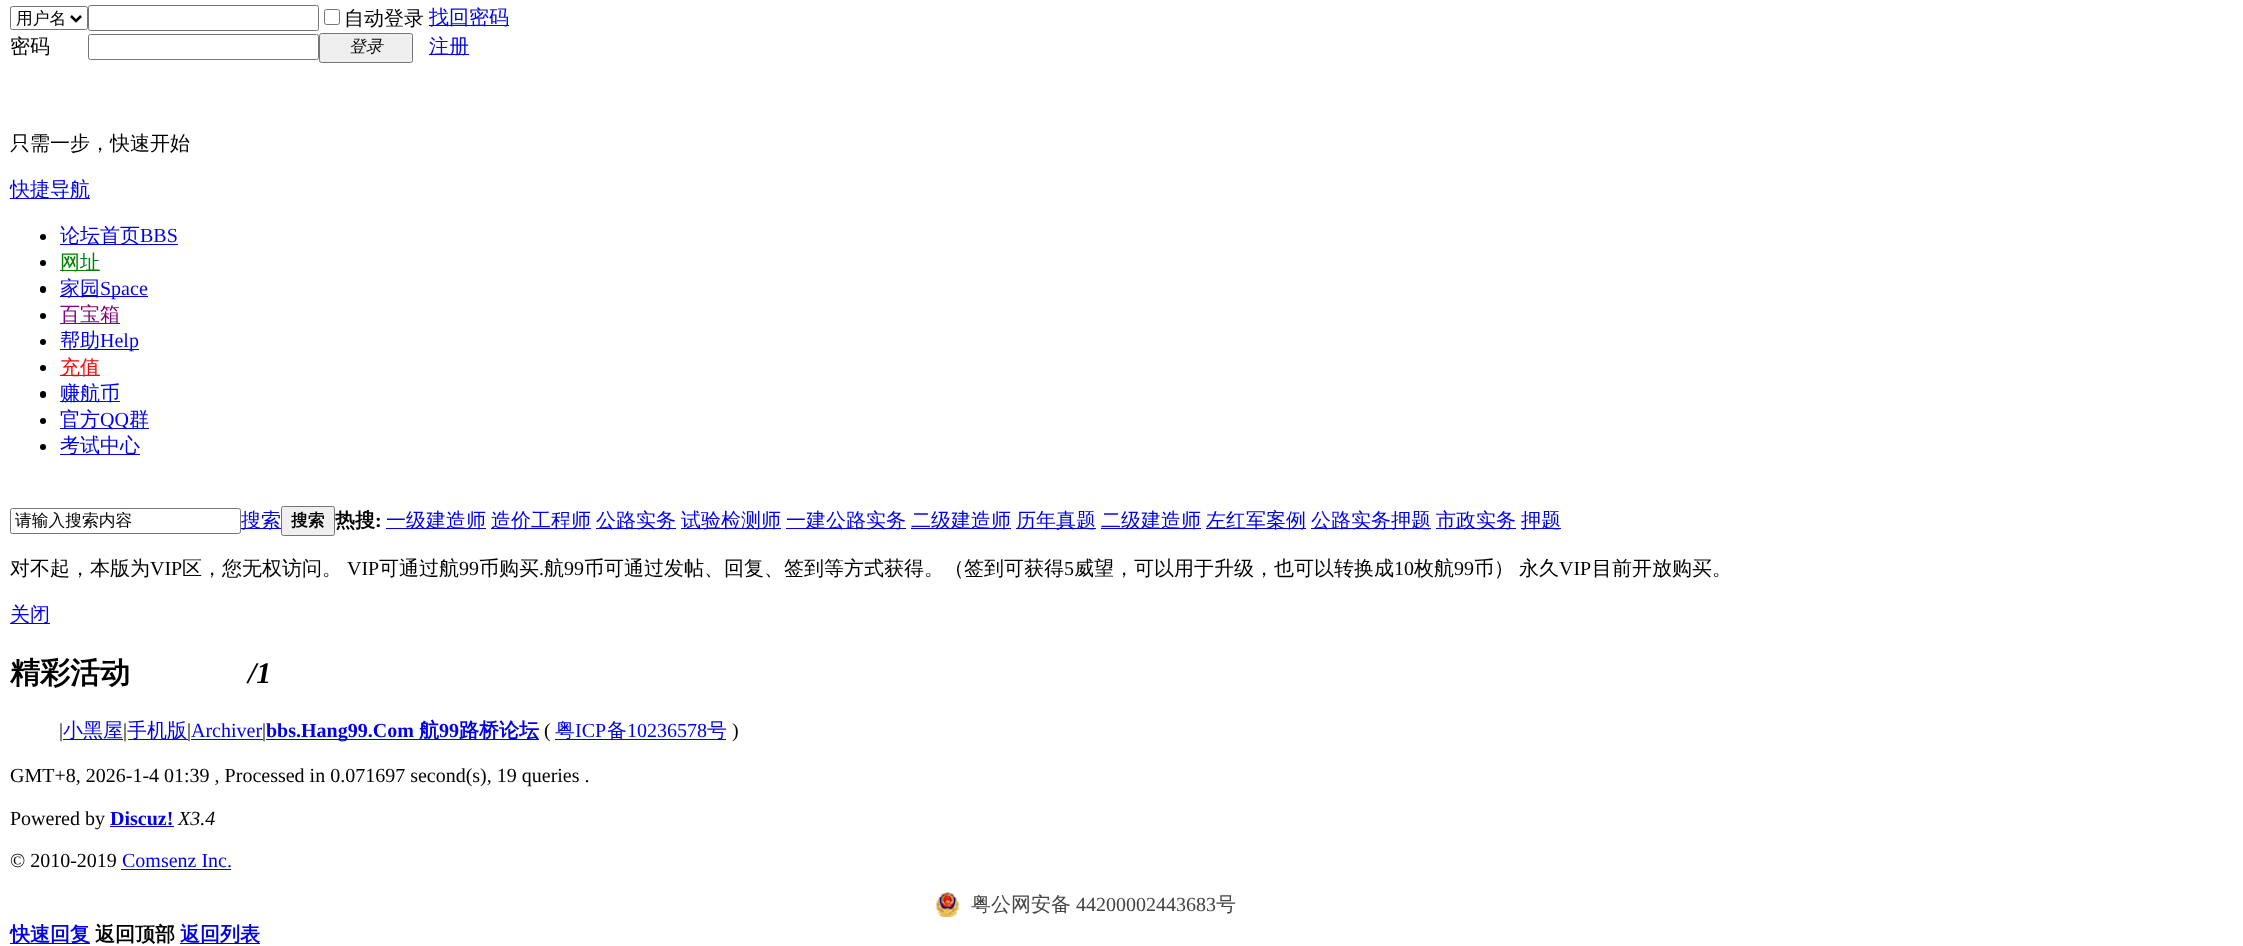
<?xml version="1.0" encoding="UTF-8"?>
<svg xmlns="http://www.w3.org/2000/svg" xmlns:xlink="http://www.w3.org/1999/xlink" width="2243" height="946">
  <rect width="100%" height="100%" fill="#ffffff" />
  <rect x="10.5" y="6.5" width="77" height="23" rx="2" fill="none" stroke="#767676" />
  <path d="M 71 16 l 5 5 l 5 -5" fill="none" stroke="#000000" stroke-width="2.5" />
  <rect x="88.5" y="5.5" width="230" height="25" rx="2" fill="none" stroke="#767676" />
  <rect x="324.5" y="9.5" width="15" height="15" rx="2" fill="none" stroke="#767676" />
  <rect x="429" y="25" width="80" height="1" fill="#0000ee" />
  <rect x="88.5" y="34.5" width="230" height="25" rx="2" fill="none" stroke="#767676" />
  <rect x="319.5" y="33.5" width="93" height="29" rx="2" fill="#efefef" stroke="#767676" />
  <rect x="429" y="54" width="40" height="1" fill="#0000ee" />
  <rect x="10" y="198" width="80" height="1" fill="#0000ee" />
  <circle cx="43" cy="237" r="3" fill="#000000" />
  <rect x="60" y="244" width="118" height="1" fill="#0000ee" />
  <circle cx="43" cy="263" r="3" fill="#000000" />
  <rect x="60" y="270" width="40" height="1" fill="#008000" />
  <rect x="40" y="286" width="6" height="7" rx="3" fill="#000000" />
  <rect x="60" y="296" width="88" height="1" fill="#0000ee" />
  <circle cx="43" cy="316" r="3" fill="#000000" />
  <rect x="60" y="323" width="60" height="1" fill="#800080" />
  <circle cx="43" cy="342" r="3" fill="#000000" />
  <rect x="60" y="349" width="79" height="1" fill="#0000ee" />
  <circle cx="43" cy="368" r="3" fill="#000000" />
  <rect x="60" y="375" width="40" height="1" fill="#ff0000" />
  <rect x="40" y="391" width="6" height="7" rx="3" fill="#000000" />
  <rect x="60" y="401" width="60" height="1" fill="#0000ff" />
  <circle cx="43" cy="421" r="3" fill="#000000" />
  <rect x="60" y="428" width="89" height="1" fill="#0000ee" />
  <circle cx="43" cy="447" r="3" fill="#000000" />
  <rect x="60" y="454" width="80" height="1" fill="#0000ee" />
  <rect x="10.5" y="508.5" width="230" height="25" rx="2" fill="none" stroke="#767676" />
  <rect x="241" y="528" width="40" height="1" fill="#0000ee" />
  <rect x="281.5" y="506.5" width="53" height="29" rx="2" fill="#efefef" stroke="#767676" />
  <rect x="386" y="528" width="100" height="1" fill="#0000ee" />
  <rect x="491" y="528" width="100" height="1" fill="#0000ee" />
  <rect x="596" y="528" width="80" height="1" fill="#0000ee" />
  <rect x="681" y="528" width="100" height="1" fill="#0000ee" />
  <rect x="786" y="528" width="120" height="1" fill="#0000ee" />
  <rect x="911" y="528" width="100" height="1" fill="#0000ee" />
  <rect x="1016" y="528" width="80" height="1" fill="#0000ee" />
  <rect x="1101" y="528" width="100" height="1" fill="#0000ee" />
  <rect x="1206" y="528" width="100" height="1" fill="#0000ee" />
  <rect x="1311" y="528" width="120" height="1" fill="#0000ee" />
  <rect x="1436" y="528" width="80" height="1" fill="#0000ee" />
  <rect x="1521" y="528" width="40" height="1" fill="#0000ee" />
  <rect x="10" y="623" width="40" height="1" fill="#0000ee" />
  <rect x="63" y="739" width="60" height="1" fill="#0000ee" />
  <rect x="128" y="739" width="60" height="1" fill="#0000ee" />
  <rect x="191" y="739" width="72" height="1" fill="#0000ee" />
  <rect x="266" y="739" width="273" height="1" fill="#0000ee" />
  <rect x="555" y="739" width="171" height="1" fill="#0000ee" />
  <rect x="110" y="826" width="64" height="1" fill="#0000ee" />
  <rect x="121" y="869" width="110" height="1" fill="#0000ee" />
  <image x="936" y="892" width="23" height="25" xlink:href="image1.png" />
  <rect x="10" y="943" width="80" height="1" fill="#0000ee" />
  <rect x="180" y="943" width="80" height="1" fill="#0000ee" />
  <text x="16" y="24" style="font-family: WenQuanYi Zen Hei; font-size: 16.75px; font-weight: 500; fill: #000000">用户名</text>
  <text x="344" y="25" style="font-family: WenQuanYi Zen Hei; font-size: 20px; font-weight: 500; fill: #000000">自动登录</text>
  <text x="429" y="24" style="font-family: WenQuanYi Zen Hei; font-size: 20px; font-weight: 500; fill: #0000ee">找回密码</text>
  <text x="10" y="53" style="font-family: WenQuanYi Zen Hei; font-size: 20px; font-weight: 500; fill: #000000">密码</text>
  <text x="349" y="52" style="font-family: WenQuanYi Zen Hei; font-size: 16.75px; font-weight: 500; font-style: italic; fill: #000000">登录</text>
  <text x="429" y="53" style="font-family: WenQuanYi Zen Hei; font-size: 20px; font-weight: 500; fill: #0000ee">注册</text>
  <text x="10" y="150" style="font-family: WenQuanYi Zen Hei; font-size: 20px; font-weight: 500; fill: #000000">只需一步，快速开始</text>
  <text x="10" y="196" style="font-family: WenQuanYi Zen Hei; font-size: 20px; font-weight: 500; fill: #0000ee">快捷导航</text>
  <text x="60" y="242" style="font-family: WenQuanYi Zen Hei; font-size: 20px; font-weight: 500; fill: #0000ee">论坛首页</text>
  <text x="140" y="242" style="font-family: Liberation Serif; font-size: 20px; fill: #0000ee">BBS</text>
  <text x="60" y="269" style="font-family: WenQuanYi Zen Hei; font-size: 20px; font-weight: 500; fill: #008000">网址</text>
  <text x="60" y="295" style="font-family: WenQuanYi Zen Hei; font-size: 20px; font-weight: 500; fill: #0000ee">家园</text>
  <text x="100" y="295" style="font-family: Liberation Serif; font-size: 20px; fill: #0000ee">Space</text>
  <text x="60" y="321" style="font-family: WenQuanYi Zen Hei; font-size: 20px; font-weight: 500; fill: #800080">百宝箱</text>
  <text x="60" y="347" style="font-family: WenQuanYi Zen Hei; font-size: 20px; font-weight: 500; fill: #0000ee">帮助</text>
  <text x="100" y="347" style="font-family: Liberation Serif; font-size: 20px; fill: #0000ee">Help</text>
  <text x="60" y="374" style="font-family: WenQuanYi Zen Hei; font-size: 20px; font-weight: 500; fill: #ff0000">充值</text>
  <text x="60" y="400" style="font-family: WenQuanYi Zen Hei; font-size: 20px; font-weight: 500; fill: #0000ff">赚航币</text>
  <text x="60" y="426" style="font-family: WenQuanYi Zen Hei; font-size: 20px; font-weight: 500; fill: #0000ee">官方</text>
  <text x="100" y="426" style="font-family: Liberation Serif; font-size: 20px; fill: #0000ee">QQ</text>
  <text x="129" y="426" style="font-family: WenQuanYi Zen Hei; font-size: 20px; font-weight: 500; fill: #0000ee">群</text>
  <text x="60" y="452" style="font-family: WenQuanYi Zen Hei; font-size: 20px; font-weight: 500; fill: #0000ee">考试中心</text>
  <text x="15" y="526" style="font-family: WenQuanYi Zen Hei; font-size: 16.75px; font-weight: 500; fill: #000000">请输入搜索内容</text>
  <text x="241" y="527" style="font-family: WenQuanYi Zen Hei; font-size: 20px; font-weight: 500; fill: #0000ee">搜索</text>
  <text x="291" y="526" style="font-family: WenQuanYi Zen Hei; font-size: 16.75px; font-weight: bold; fill: #000000">搜索</text>
  <text x="335" y="527" style="font-family: WenQuanYi Zen Hei; font-size: 20px; font-weight: bold; fill: #000000">热搜</text>
  <text x="375" y="527" style="font-family: Liberation Serif; font-size: 20px; font-weight: bold; fill: #000000">:</text>
  <text x="386" y="527" style="font-family: WenQuanYi Zen Hei; font-size: 20px; font-weight: 500; fill: #0000ee">一级建造师</text>
  <text x="491" y="527" style="font-family: WenQuanYi Zen Hei; font-size: 20px; font-weight: 500; fill: #0000ee">造价工程师</text>
  <text x="596" y="527" style="font-family: WenQuanYi Zen Hei; font-size: 20px; font-weight: 500; fill: #0000ee">公路实务</text>
  <text x="681" y="527" style="font-family: WenQuanYi Zen Hei; font-size: 20px; font-weight: 500; fill: #0000ee">试验检测师</text>
  <text x="786" y="527" style="font-family: WenQuanYi Zen Hei; font-size: 20px; font-weight: 500; fill: #0000ee">一建公路实务</text>
  <text x="911" y="527" style="font-family: WenQuanYi Zen Hei; font-size: 20px; font-weight: 500; fill: #0000ee">二级建造师</text>
  <text x="1016" y="527" style="font-family: WenQuanYi Zen Hei; font-size: 20px; font-weight: 500; fill: #0000ee">历年真题</text>
  <text x="1101" y="527" style="font-family: WenQuanYi Zen Hei; font-size: 20px; font-weight: 500; fill: #0000ee">二级建造师</text>
  <text x="1206" y="527" style="font-family: WenQuanYi Zen Hei; font-size: 20px; font-weight: 500; fill: #0000ee">左红军案例</text>
  <text x="1311" y="527" style="font-family: WenQuanYi Zen Hei; font-size: 20px; font-weight: 500; fill: #0000ee">公路实务押题</text>
  <text x="1436" y="527" style="font-family: WenQuanYi Zen Hei; font-size: 20px; font-weight: 500; fill: #0000ee">市政实务</text>
  <text x="1521" y="527" style="font-family: WenQuanYi Zen Hei; font-size: 20px; font-weight: 500; fill: #0000ee">押题</text>
  <text x="10" y="575" style="font-family: WenQuanYi Zen Hei; font-size: 20px; font-weight: 500; fill: #000000">对不起，本版为</text>
  <text x="150" y="575" style="font-family: Liberation Serif; font-size: 20px; fill: #000000">VIP</text>
  <text x="182" y="575" style="font-family: WenQuanYi Zen Hei; font-size: 20px; font-weight: 500; fill: #000000">区，您无权访问。</text>
  <text x="347" y="575" style="font-family: Liberation Serif; font-size: 20px; fill: #000000">VIP</text>
  <text x="379" y="575" style="font-family: WenQuanYi Zen Hei; font-size: 20px; font-weight: 500; fill: #000000">可通过航</text>
  <text x="459" y="575" style="font-family: Liberation Serif; font-size: 20px; fill: #000000">99</text>
  <text x="479" y="575" style="font-family: WenQuanYi Zen Hei; font-size: 20px; font-weight: 500; fill: #000000">币购买</text>
  <text x="539" y="575" style="font-family: Liberation Serif; font-size: 20px; fill: #000000">.</text>
  <text x="544" y="575" style="font-family: WenQuanYi Zen Hei; font-size: 20px; font-weight: 500; fill: #000000">航</text>
  <text x="564" y="575" style="font-family: Liberation Serif; font-size: 20px; fill: #000000">99</text>
  <text x="584" y="575" style="font-family: WenQuanYi Zen Hei; font-size: 20px; font-weight: 500; fill: #000000">币可通过发帖、回复、签到等方式获得。（签到可获得</text>
  <text x="1064" y="575" style="font-family: Liberation Serif; font-size: 20px; fill: #000000">5</text>
  <text x="1074" y="575" style="font-family: WenQuanYi Zen Hei; font-size: 20px; font-weight: 500; fill: #000000">威望，可以用于升级，也可以转换成</text>
  <text x="1394" y="575" style="font-family: Liberation Serif; font-size: 20px; fill: #000000">10</text>
  <text x="1414" y="575" style="font-family: WenQuanYi Zen Hei; font-size: 20px; font-weight: 500; fill: #000000">枚航</text>
  <text x="1454" y="575" style="font-family: Liberation Serif; font-size: 20px; fill: #000000">99</text>
  <text x="1474" y="575" style="font-family: WenQuanYi Zen Hei; font-size: 20px; font-weight: 500; fill: #000000">币）</text>
  <text x="1519" y="575" style="font-family: WenQuanYi Zen Hei; font-size: 20px; font-weight: 500; fill: #000000">永久</text>
  <text x="1559" y="575" style="font-family: Liberation Serif; font-size: 20px; fill: #000000">VIP</text>
  <text x="1592" y="575" style="font-family: WenQuanYi Zen Hei; font-size: 20px; font-weight: 500; fill: #000000">目前开放购买。</text>
  <text x="10" y="621" style="font-family: WenQuanYi Zen Hei; font-size: 20px; font-weight: 500; fill: #0000ee">关闭</text>
  <text x="10" y="683" style="font-family: WenQuanYi Zen Hei; font-size: 30px; font-weight: bold; fill: #000000">精彩活动</text>
  <text x="248" y="683" style="font-family: Liberation Serif; font-size: 30px; font-weight: bold; font-style: italic; fill: #000000">/1</text>
  <text x="59" y="737" style="font-family: Liberation Serif; font-size: 20px; fill: #000000">|</text>
  <text x="63" y="737" style="font-family: WenQuanYi Zen Hei; font-size: 20px; font-weight: 500; fill: #0000ee">小黑屋</text>
  <text x="123" y="737" style="font-family: Liberation Serif; font-size: 20px; fill: #000000">|</text>
  <text x="127" y="737" style="font-family: WenQuanYi Zen Hei; font-size: 20px; font-weight: 500; fill: #0000ee">手机版</text>
  <text x="187" y="737" style="font-family: Liberation Serif; font-size: 20px; fill: #000000">|</text>
  <text x="191" y="737" style="font-family: Liberation Serif; font-size: 20px; fill: #0000ee">Archiver</text>
  <text x="262" y="737" style="font-family: Liberation Serif; font-size: 20px; fill: #000000">|</text>
  <text x="266" y="737" style="font-family: Liberation Serif; font-size: 20px; font-weight: bold; fill: #0000ee">bbs.Hang99.Com</text>
  <text x="419" y="737" style="font-family: WenQuanYi Zen Hei; font-size: 20px; font-weight: bold; fill: #0000ee">航</text>
  <text x="439" y="737" style="font-family: Liberation Serif; font-size: 20px; font-weight: bold; fill: #0000ee">99</text>
  <text x="459" y="737" style="font-family: WenQuanYi Zen Hei; font-size: 20px; font-weight: bold; fill: #0000ee">路桥论坛</text>
  <text x="544" y="737" style="font-family: Liberation Serif; font-size: 20px; fill: #000000">(</text>
  <text x="555" y="737" style="font-family: WenQuanYi Zen Hei; font-size: 20px; font-weight: 500; fill: #0000ee">粤</text>
  <text x="575" y="737" style="font-family: Liberation Serif; font-size: 20px; fill: #0000ee">ICP</text>
  <text x="607" y="737" style="font-family: WenQuanYi Zen Hei; font-size: 20px; font-weight: 500; fill: #0000ee">备</text>
  <text x="627" y="737" style="font-family: Liberation Serif; font-size: 20px; fill: #0000ee">10236578</text>
  <text x="707" y="737" style="font-family: WenQuanYi Zen Hei; font-size: 20px; font-weight: 500; fill: #0000ee">号</text>
  <text x="732" y="737" style="font-family: Liberation Serif; font-size: 20px; fill: #000000">)</text>
  <text x="10" y="782" style="font-family: Liberation Serif; font-size: 20px; fill: #000000">GMT+8, 2026-1-4 01:39 , Processed in 0.071697 second(s), 19 queries .</text>
  <text x="10" y="825" style="font-family: Liberation Serif; font-size: 20px; fill: #000000">Powered by</text>
  <text x="110" y="825" style="font-family: Liberation Serif; font-size: 20px; font-weight: bold; fill: #0000ee">Discuz!</text>
  <text x="178" y="825" style="font-family: Liberation Serif; font-size: 20px; font-style: italic; fill: #000000">X3.4</text>
  <text x="10" y="867" style="font-family: Liberation Serif; font-size: 20px; fill: #000000">© 2010-2019</text>
  <text x="122" y="867" style="font-family: Liberation Serif; font-size: 20px; fill: #0000ee">Comsenz Inc.</text>
  <text x="971" y="911" style="font-family: WenQuanYi Zen Hei; font-size: 20px; font-weight: 500; fill: #444444">粤公网安备</text>
  <text x="1076" y="911" style="font-family: Liberation Serif; font-size: 20px; fill: #444444">44200002443683</text>
  <text x="1216" y="911" style="font-family: WenQuanYi Zen Hei; font-size: 20px; font-weight: 500; fill: #444444">号</text>
  <text x="10" y="941" style="font-family: WenQuanYi Zen Hei; font-size: 20px; font-weight: bold; fill: #0000ee">快速回复</text>
  <text x="95" y="941" style="font-family: WenQuanYi Zen Hei; font-size: 20px; font-weight: bold; fill: #000000">返回顶部</text>
  <text x="180" y="941" style="font-family: WenQuanYi Zen Hei; font-size: 20px; font-weight: bold; fill: #0000ee">返回列表</text>
</svg>
